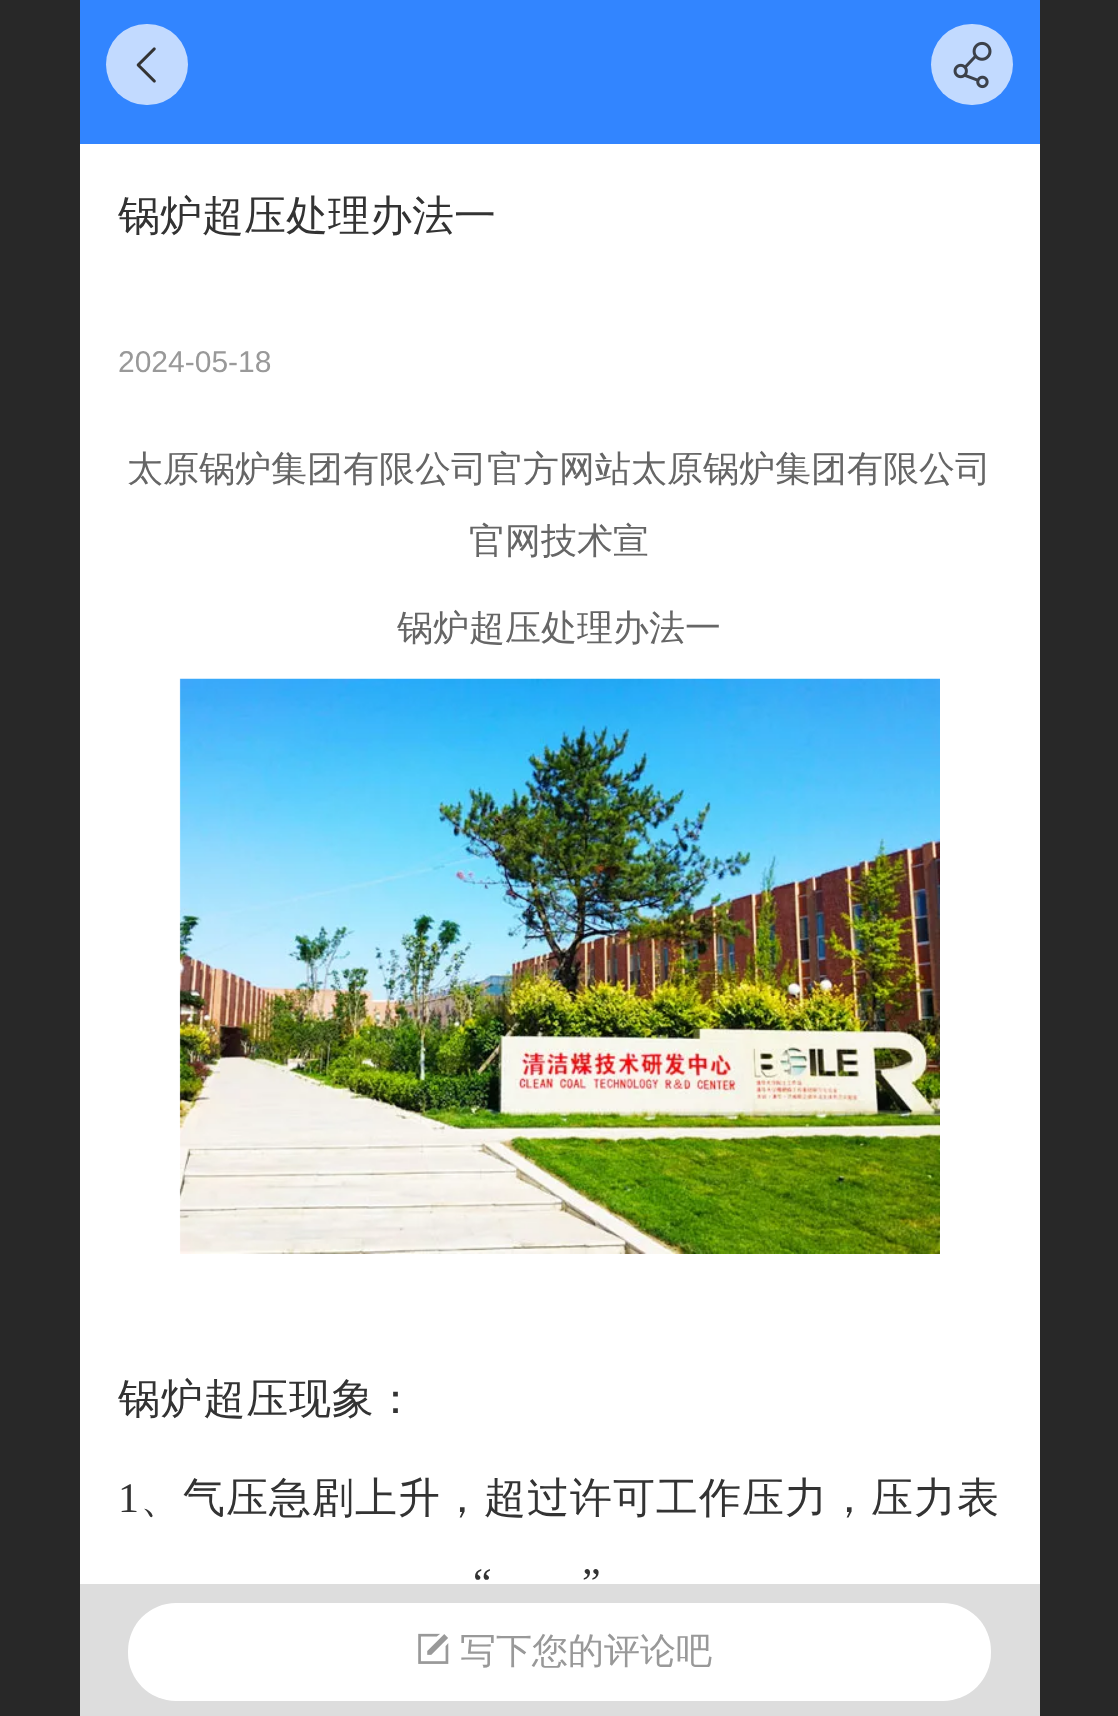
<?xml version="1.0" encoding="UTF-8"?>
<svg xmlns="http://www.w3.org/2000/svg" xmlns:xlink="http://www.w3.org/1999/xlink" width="1118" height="1716">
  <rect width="100%" height="100%" fill="#ffffff" />
  <rect width="80" height="1716" fill="#282828" />
  <rect x="80" width="960" height="144" fill="#3285ff" />
  <rect x="106" y="24" width="82" height="81" rx="40.5" fill="#c2daff" />
  <image x="136" y="47" width="20" height="36" xlink:href="image1.png" />
  <rect x="931" y="24" width="82" height="81" rx="40.5" fill="#c2daff" />
  <image x="953" y="41" width="39" height="48" xlink:href="image2.png" />
  <image x="179" y="678" width="761" height="576" xlink:href="image3.png" />
  <rect x="80" y="1584" width="960" height="132" fill="#dddddd" />
  <rect x="128" y="1603" width="863" height="98" rx="48" fill="#ffffff" />
  <image x="418" y="1633" width="31" height="31" xlink:href="image4.png" />
  <rect x="1040" width="78" height="1716" fill="#282828" />
  <text x="118" y="230" style="font-family: WenQuanYi Zen Hei; font-size: 42px; font-weight: 500; fill: #333333">锅炉超压处理办法一</text>
  <text x="118" y="372" style="font-family: Liberation Sans; font-size: 30px; fill: #999999">2024-05-18</text>
  <text x="127" y="481" style="font-family: WenQuanYi Zen Hei; font-size: 36px; font-weight: 500; fill: #666666">太原锅炉集团有限公司官方网站太原锅炉集团有限公司</text>
  <text x="469" y="553" style="font-family: WenQuanYi Zen Hei; font-size: 36px; font-weight: 500; fill: #666666">官网技术宣</text>
  <text x="397" y="640" style="font-family: WenQuanYi Zen Hei; font-size: 36px; font-weight: 500; fill: #666666">锅炉超压处理办法一</text>
  <text x="118" y="1413" style="font-family: WenQuanYi Zen Hei; font-size: 42px; font-weight: 500; letter-spacing: 0.75px; fill: #333333">锅炉超压现象：</text>
  <text x="118" y="1512" style="font-family: Liberation Serif; font-size: 42px; letter-spacing: 1px; fill: #333333">1</text>
  <text x="140" y="1512" style="font-family: WenQuanYi Zen Hei; font-size: 42px; font-weight: 500; letter-spacing: 1px; fill: #333333">、气压急剧上升，超过许可工作压力，压力表</text>
  <text x="473" y="1597" style="font-family: Liberation Serif; font-size: 42px; letter-spacing: 2px; fill: #333333">“</text>
  <text x="582" y="1597" style="font-family: Liberation Serif; font-size: 42px; letter-spacing: 2px; fill: #333333">”</text>
  <text x="460" y="1663" style="font-family: WenQuanYi Zen Hei; font-size: 36px; font-weight: 500; fill: #999999">写下您的评论吧</text>
</svg>
